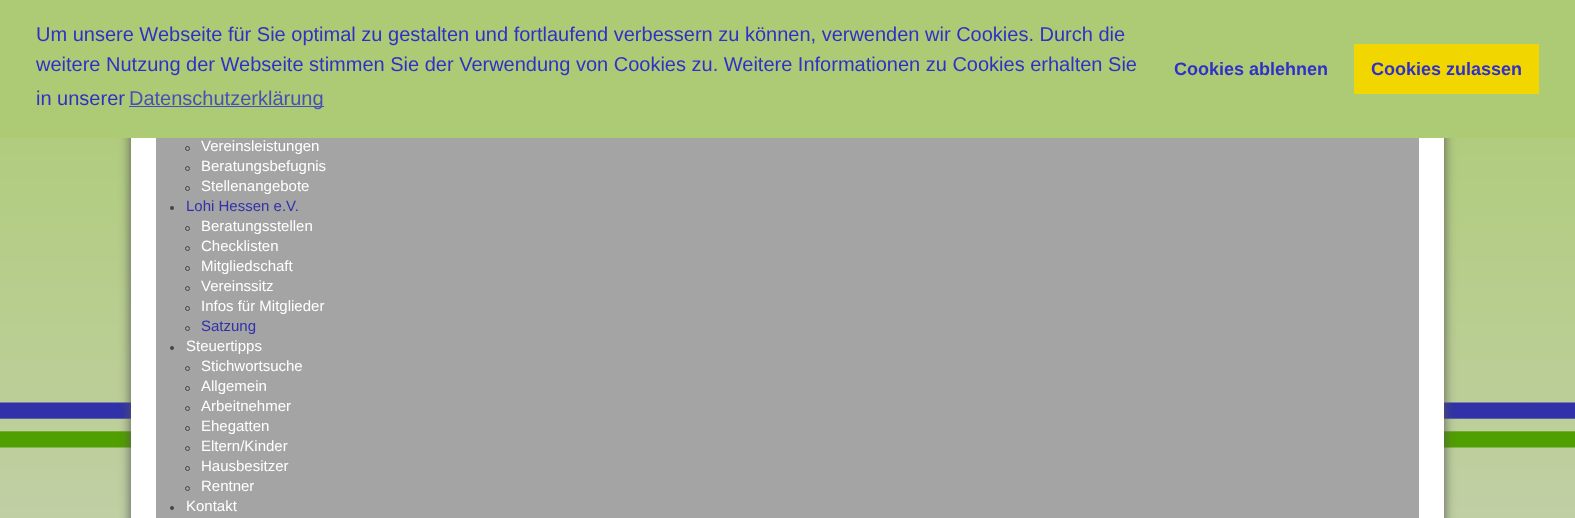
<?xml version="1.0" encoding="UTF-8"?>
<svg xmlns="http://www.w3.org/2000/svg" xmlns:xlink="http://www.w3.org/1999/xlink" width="1575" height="518">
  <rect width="100%" height="100%" fill="#ffffff" />
  <image x="0" y="138" width="1575" height="380" xlink:href="image1.png" />
  <rect x="131" y="25" width="1313" height="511" fill="#555555" filter="blur(6px)" />
  <rect width="1575" height="138" fill="#adcb74" />
  <rect x="129" y="106" width="195" height="1" fill="#494fb8" />
  <rect x="1354" y="44" width="185" height="50" fill="#f1d600" />
  <rect x="131" y="138" width="1313" height="380" fill="#ffffff" />
  <rect x="156" y="138" width="1263" height="380" fill="#a4a4a4" />
  <circle cx="187.5" cy="148.5" r="2" fill="none" stroke="#444444" />
  <circle cx="187.5" cy="168.5" r="2" fill="none" stroke="#444444" />
  <circle cx="187.5" cy="188.5" r="2" fill="none" stroke="#444444" />
  <circle cx="172" cy="208" r="2" fill="#444444" />
  <circle cx="187.5" cy="228.5" r="2" fill="none" stroke="#444444" />
  <circle cx="187.5" cy="248.5" r="2" fill="none" stroke="#444444" />
  <circle cx="187.5" cy="268.5" r="2" fill="none" stroke="#444444" />
  <circle cx="187.5" cy="288.5" r="2" fill="none" stroke="#444444" />
  <circle cx="187.5" cy="308.5" r="2" fill="none" stroke="#444444" />
  <circle cx="187.5" cy="328.5" r="2" fill="none" stroke="#444444" />
  <circle cx="172" cy="348" r="2" fill="#444444" />
  <circle cx="187.5" cy="368.5" r="2" fill="none" stroke="#444444" />
  <circle cx="187.5" cy="388.5" r="2" fill="none" stroke="#444444" />
  <circle cx="187.5" cy="408.5" r="2" fill="none" stroke="#444444" />
  <circle cx="187.5" cy="428.5" r="2" fill="none" stroke="#444444" />
  <circle cx="187.5" cy="448.5" r="2" fill="none" stroke="#444444" />
  <circle cx="187.5" cy="468.5" r="2" fill="none" stroke="#444444" />
  <circle cx="187.5" cy="488.5" r="2" fill="none" stroke="#444444" />
  <circle cx="172" cy="508" r="2" fill="#444444" />
  <text x="36" y="41" style="font-family: Liberation Sans; font-size: 20px; fill: #3030c9">Um unsere Webseite für Sie optimal zu gestalten und fortlaufend verbessern zu können, verwenden wir Cookies. Durch die</text>
  <text x="36" y="71" style="font-family: Liberation Sans; font-size: 20px; fill: #3030c9">weitere Nutzung der Webseite stimmen Sie der Verwendung von Cookies zu. Weitere Informationen zu Cookies erhalten Sie</text>
  <text x="36" y="105" style="font-family: Liberation Sans; font-size: 20px; fill: #3030c9">in unserer</text>
  <text x="129" y="105" style="font-family: Liberation Sans; font-size: 20px; fill: #494fb8">Datenschutzerklärung</text>
  <text x="1174" y="75" style="font-family: Liberation Sans; font-size: 18px; font-weight: bold; fill: #3030c9">Cookies ablehnen</text>
  <text x="1371" y="75" style="font-family: Liberation Sans; font-size: 18px; font-weight: bold; fill: #3030c9">Cookies zulassen</text>
  <text x="201" y="151" style="font-family: Liberation Sans; font-size: 15px; fill: #ffffff">Vereinsleistungen</text>
  <text x="201" y="171" style="font-family: Liberation Sans; font-size: 15px; fill: #ffffff">Beratungsbefugnis</text>
  <text x="201" y="191" style="font-family: Liberation Sans; font-size: 15px; fill: #ffffff">Stellenangebote</text>
  <text x="186" y="211" style="font-family: Liberation Sans; font-size: 15px; fill: #3132a9">Lohi Hessen e.V.</text>
  <text x="201" y="231" style="font-family: Liberation Sans; font-size: 15px; fill: #ffffff">Beratungsstellen</text>
  <text x="201" y="251" style="font-family: Liberation Sans; font-size: 15px; fill: #ffffff">Checklisten</text>
  <text x="201" y="271" style="font-family: Liberation Sans; font-size: 15px; fill: #ffffff">Mitgliedschaft</text>
  <text x="201" y="291" style="font-family: Liberation Sans; font-size: 15px; fill: #ffffff">Vereinssitz</text>
  <text x="201" y="311" style="font-family: Liberation Sans; font-size: 15px; fill: #ffffff">Infos für Mitglieder</text>
  <text x="201" y="331" style="font-family: Liberation Sans; font-size: 15px; fill: #3132a9">Satzung</text>
  <text x="186" y="351" style="font-family: Liberation Sans; font-size: 15px; fill: #ffffff">Steuertipps</text>
  <text x="201" y="371" style="font-family: Liberation Sans; font-size: 15px; fill: #ffffff">Stichwortsuche</text>
  <text x="201" y="391" style="font-family: Liberation Sans; font-size: 15px; fill: #ffffff">Allgemein</text>
  <text x="201" y="411" style="font-family: Liberation Sans; font-size: 15px; fill: #ffffff">Arbeitnehmer</text>
  <text x="201" y="431" style="font-family: Liberation Sans; font-size: 15px; fill: #ffffff">Ehegatten</text>
  <text x="201" y="451" style="font-family: Liberation Sans; font-size: 15px; fill: #ffffff">Eltern/Kinder</text>
  <text x="201" y="471" style="font-family: Liberation Sans; font-size: 15px; fill: #ffffff">Hausbesitzer</text>
  <text x="201" y="491" style="font-family: Liberation Sans; font-size: 15px; fill: #ffffff">Rentner</text>
  <text x="186" y="511" style="font-family: Liberation Sans; font-size: 15px; fill: #ffffff">Kontakt</text>
</svg>
